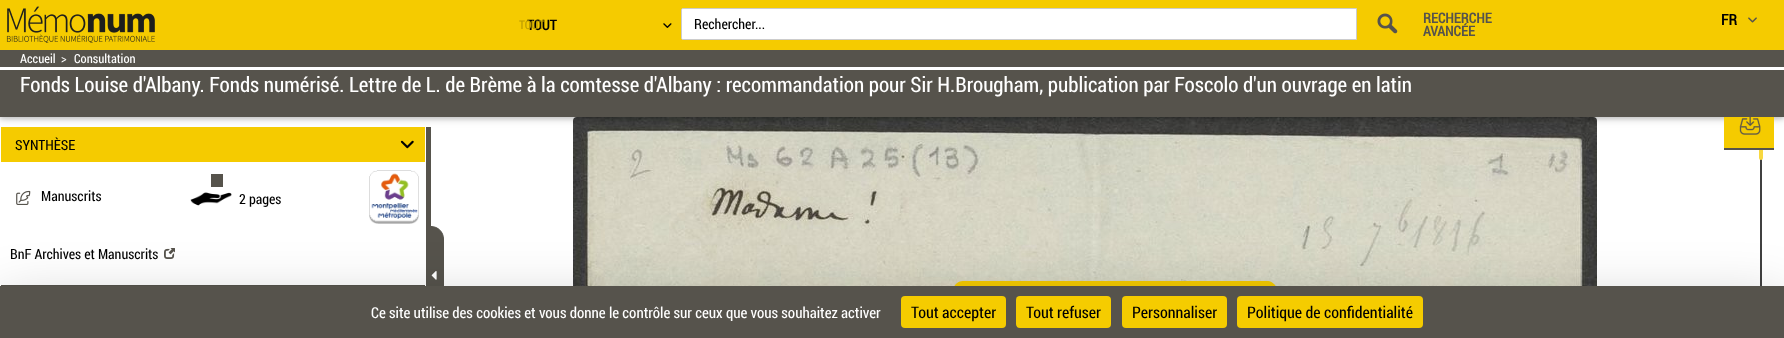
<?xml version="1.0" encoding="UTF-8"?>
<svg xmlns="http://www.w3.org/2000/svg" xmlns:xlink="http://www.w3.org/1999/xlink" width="1784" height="338">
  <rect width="100%" height="100%" fill="#ffffff" />
  <image x="573" y="117" width="1024" height="169" xlink:href="image11.png" />
  <rect x="1760" y="159" width="2" height="127" fill="#404040" />
  <rect x="1759" y="127" width="4" height="33" rx="2" fill="#f8d840" />
  <rect y="52" width="1784" height="67" fill="#000000" fill-opacity="0.12" filter="blur(5px)" />
  <rect y="52" width="1784" height="67" fill="#000000" fill-opacity="0.16" filter="blur(2px)" />
  <rect width="1784" height="50" fill="#f5cb00" />
  <image x="6" y="6" width="149" height="37" xlink:href="image1.png" />
  <image x="663" y="23" width="9" height="5" xlink:href="image2.png" />
  <path d="M 683 8.5 h 673.5 v 31 h -673.5 c -1 0 -1.5 -0.5 -1.5 -1.5 v -28 c 0 -1 0.5 -1.5 1.5 -1.5 z" fill="#ffffff" stroke="#cccccc" />
  <image x="1377" y="13" width="21" height="21" xlink:href="image3.png" />
  <image x="1748" y="17" width="9" height="6" xlink:href="image4.png" />
  <rect y="50" width="1784" height="67" fill="#56534c" />
  <rect y="67" width="1784" height="3" fill="#ffffff" />
  <rect x="426" y="127" width="5" height="159" fill="#56534c" />
  <rect x="1" y="127" width="424" height="35" fill="#f5cb00" />
  <image x="400" y="140" width="14" height="9" xlink:href="image5.png" />
  <image x="16" y="190" width="15" height="15" xlink:href="image6.png" />
  <rect x="211" y="174" width="12" height="13" fill="#56534c" />
  <image x="190" y="192" width="42" height="14" xlink:href="image7.png" />
  <image x="369" y="170" width="50" height="54" xlink:href="image8.png" />
  <image x="164" y="248" width="11" height="11" xlink:href="image9.png" />
  <rect x="1" y="285" width="424" height="1" fill="#56534c" />
  <path d="M 431.5 226.5 h -0.5 c 7 0 12.5 5.5 12.5 12.5 v 74 c 0 7 -5.5 12.5 -12.5 12.5 h 0.5 z" fill="#56534c" stroke="#56534c" />
  <image x="431" y="271" width="6" height="9" xlink:href="image10.png" />
  <rect x="1724" y="117" width="50" height="31" fill="#f5cb00" />
  <image x="1739" y="117" width="22" height="18" xlink:href="image12.png" />
  <rect x="1724" y="148" width="50" height="2" fill="#56534c" />
  <path d="M 963 281 h 304 c 5.5 0 10 4.5 10 10 v 47 h -324 v -47 c 0 -5.5 4.5 -10 10 -10 z" fill="#f5cb00" />
  <rect y="306" width="1784" height="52" fill="#000000" fill-opacity="0.25" filter="blur(30px)" />
  <rect y="286" width="1784" height="52" fill="#56534c" />
  <rect x="901" y="296" width="105" height="32" rx="4" fill="#f5cc00" />
  <rect x="1016" y="296" width="95" height="32" rx="4" fill="#f5cc00" />
  <rect x="1122" y="296" width="105" height="32" rx="4" fill="#f5cc00" />
  <rect x="1237" y="296" width="186" height="32" rx="4" fill="#f5cc00" />
  <text x="527" y="30" style="font-family: Roboto Condensed; font-size: 14px; font-weight: bold; fill: #000000">TOUT</text>
  <text x="519" y="29" style="font-family: Roboto Condensed; font-size: 12px; fill: #bc9c00">TOUT</text>
  <text x="694" y="29" style="font-family: Roboto Condensed; font-size: 14px; fill: #000000">Rechercher...</text>
  <text x="1423" y="23" style="font-family: Roboto Condensed; font-size: 14px; font-weight: bold; fill: #56534c">RECHERCHE</text>
  <text x="1423" y="36" style="font-family: Roboto Condensed; font-size: 14px; font-weight: bold; fill: #56534c">AVANCÉE</text>
  <text x="1721" y="25" style="font-family: Roboto Condensed; font-size: 15px; font-weight: bold; fill: #000000">FR</text>
  <text x="20" y="63" style="font-family: Roboto Condensed; font-size: 12.5px; fill: #ffffff">Accueil</text>
  <text x="61" y="63" style="font-family: Roboto Condensed; font-size: 12.5px; fill: #ffffff">&gt;</text>
  <text x="74" y="63" style="font-family: Roboto Condensed; font-size: 12.5px; fill: #ffffff">Consultation</text>
  <text x="20" y="92" style="font-family: Roboto Condensed; font-size: 21px; fill: #ffffff">Fonds Louise d'Albany. Fonds numérisé. Lettre de L. de Brème à la comtesse d'Albany : recommandation pour Sir H.Brougham, publication par Foscolo d'un ouvrage en latin</text>
  <text x="15" y="150" style="font-family: Roboto Condensed; font-size: 14px; fill: #000000">SYNTHÈSE</text>
  <text x="41" y="201" style="font-family: Roboto Condensed; font-size: 14px; fill: #000000">Manuscrits</text>
  <text x="239" y="204" style="font-family: Roboto Condensed; font-size: 14px; fill: #000000">2 pages</text>
  <text x="10" y="259" style="font-family: Roboto Condensed; font-size: 14px; fill: #000000">BnF Archives et Manuscrits</text>
  <text x="371" y="318" style="font-family: Roboto Condensed; font-size: 15px; fill: #ffffff">Ce site utilise des cookies et vous donne le contrôle sur ceux que vous souhaitez activer</text>
  <text x="911" y="318" style="font-family: Roboto Condensed; font-size: 16px; fill: #000000">Tout accepter</text>
  <text x="1026" y="318" style="font-family: Roboto Condensed; font-size: 16px; fill: #000000">Tout refuser</text>
  <text x="1132" y="318" style="font-family: Roboto Condensed; font-size: 16px; fill: #000000">Personnaliser</text>
  <text x="1247" y="318" style="font-family: Roboto Condensed; font-size: 16px; fill: #000000">Politique de confidentialité</text>
</svg>
